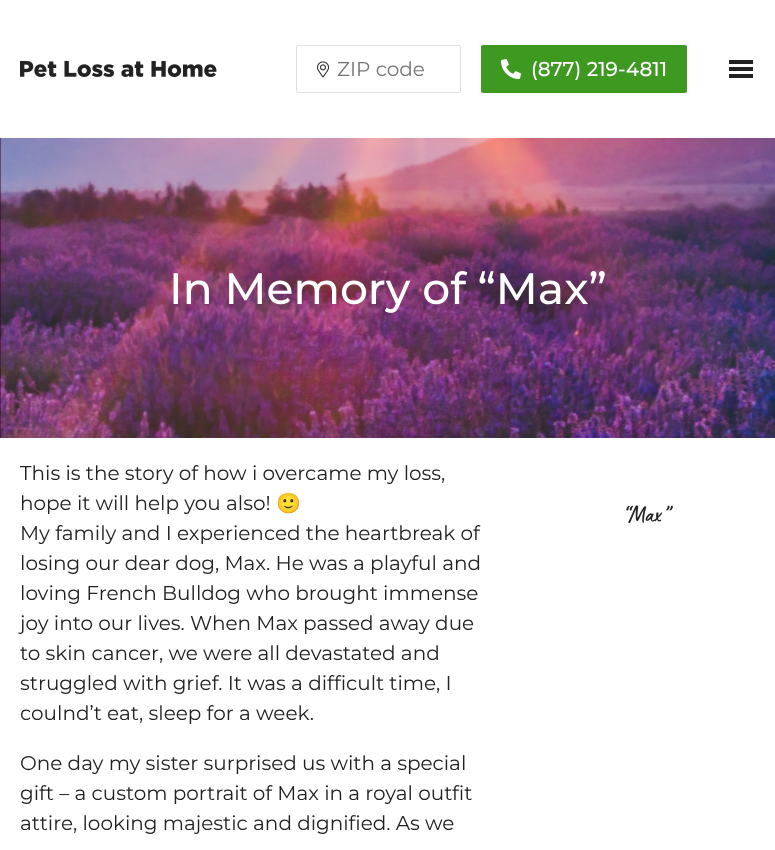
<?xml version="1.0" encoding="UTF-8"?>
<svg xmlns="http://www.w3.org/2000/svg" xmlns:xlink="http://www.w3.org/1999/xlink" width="775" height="850">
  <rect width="100%" height="100%" fill="#ffffff" />
  <image x="20" y="61" width="197" height="16" xlink:href="image1.png" />
  <rect x="296.5" y="45.5" width="164" height="47" rx="1.5" fill="none" stroke="#e0e0e0" />
  <image x="317" y="61" width="12" height="17" xlink:href="image2.png" />
  <rect x="481" y="45" width="206" height="48" rx="2" fill="#3d9920" />
  <image x="501" y="59" width="20" height="20" xlink:href="image3.png" />
  <rect x="729" y="67" width="24" height="4" fill="#222222" />
  <rect x="729" y="60" width="24" height="4" fill="#222222" />
  <rect x="729" y="74" width="24" height="4" fill="#222222" />
  <rect y="138" width="1" height="300" fill="#3c0021" />
  <image x="0" y="138" width="775" height="300" xlink:href="image4.png" />
  <image x="626" y="505" width="47" height="18" xlink:href="image5.png" />
  <text x="337" y="76" style="font-family: Montserrat; font-size: 20px; fill: #757575">ZIP code</text>
  <text x="531" y="76" style="font-family: Montserrat; font-size: 20px; font-weight: 500; fill: #ffffff">(877) 219-4811</text>
  <text x="169" y="304" style="font-family: Montserrat; font-size: 44px; font-weight: 500; fill: #ffffff">In Memory of “Max”</text>
  <text x="20" y="480" style="font-family: Montserrat; font-size: 20px; fill: #222222">This is the story of how i overcame my loss,</text>
  <text x="20" y="510" style="font-family: Montserrat; font-size: 20px; fill: #222222">hope it will help you also!</text>
  <text x="276" y="510" style="font-family: Noto Color Emoji; font-size: 20px; fill: #222222">🙂</text>
  <text x="20" y="540" style="font-family: Montserrat; font-size: 20px; fill: #222222">My family and I experienced the heartbreak of</text>
  <text x="20" y="570" style="font-family: Montserrat; font-size: 20px; fill: #222222">losing our dear dog, Max. He was a playful and</text>
  <text x="20" y="600" style="font-family: Montserrat; font-size: 20px; fill: #222222">loving French Bulldog who brought immense</text>
  <text x="20" y="630" style="font-family: Montserrat; font-size: 20px; fill: #222222">joy into our lives. When Max passed away due</text>
  <text x="20" y="660" style="font-family: Montserrat; font-size: 20px; fill: #222222">to skin cancer, we were all devastated and</text>
  <text x="20" y="690" style="font-family: Montserrat; font-size: 20px; fill: #222222">struggled with grief. It was a difficult time, I</text>
  <text x="20" y="720" style="font-family: Montserrat; font-size: 20px; fill: #222222">coulnd’t eat, sleep for a week.</text>
  <text x="20" y="770" style="font-family: Montserrat; font-size: 20px; fill: #222222">One day my sister surprised us with a special</text>
  <text x="20" y="800" style="font-family: Montserrat; font-size: 20px; fill: #222222">gift – a custom portrait of Max in a royal outfit</text>
  <text x="20" y="830" style="font-family: Montserrat; font-size: 20px; fill: #222222">attire, looking majestic and dignified. As we</text>
</svg>
